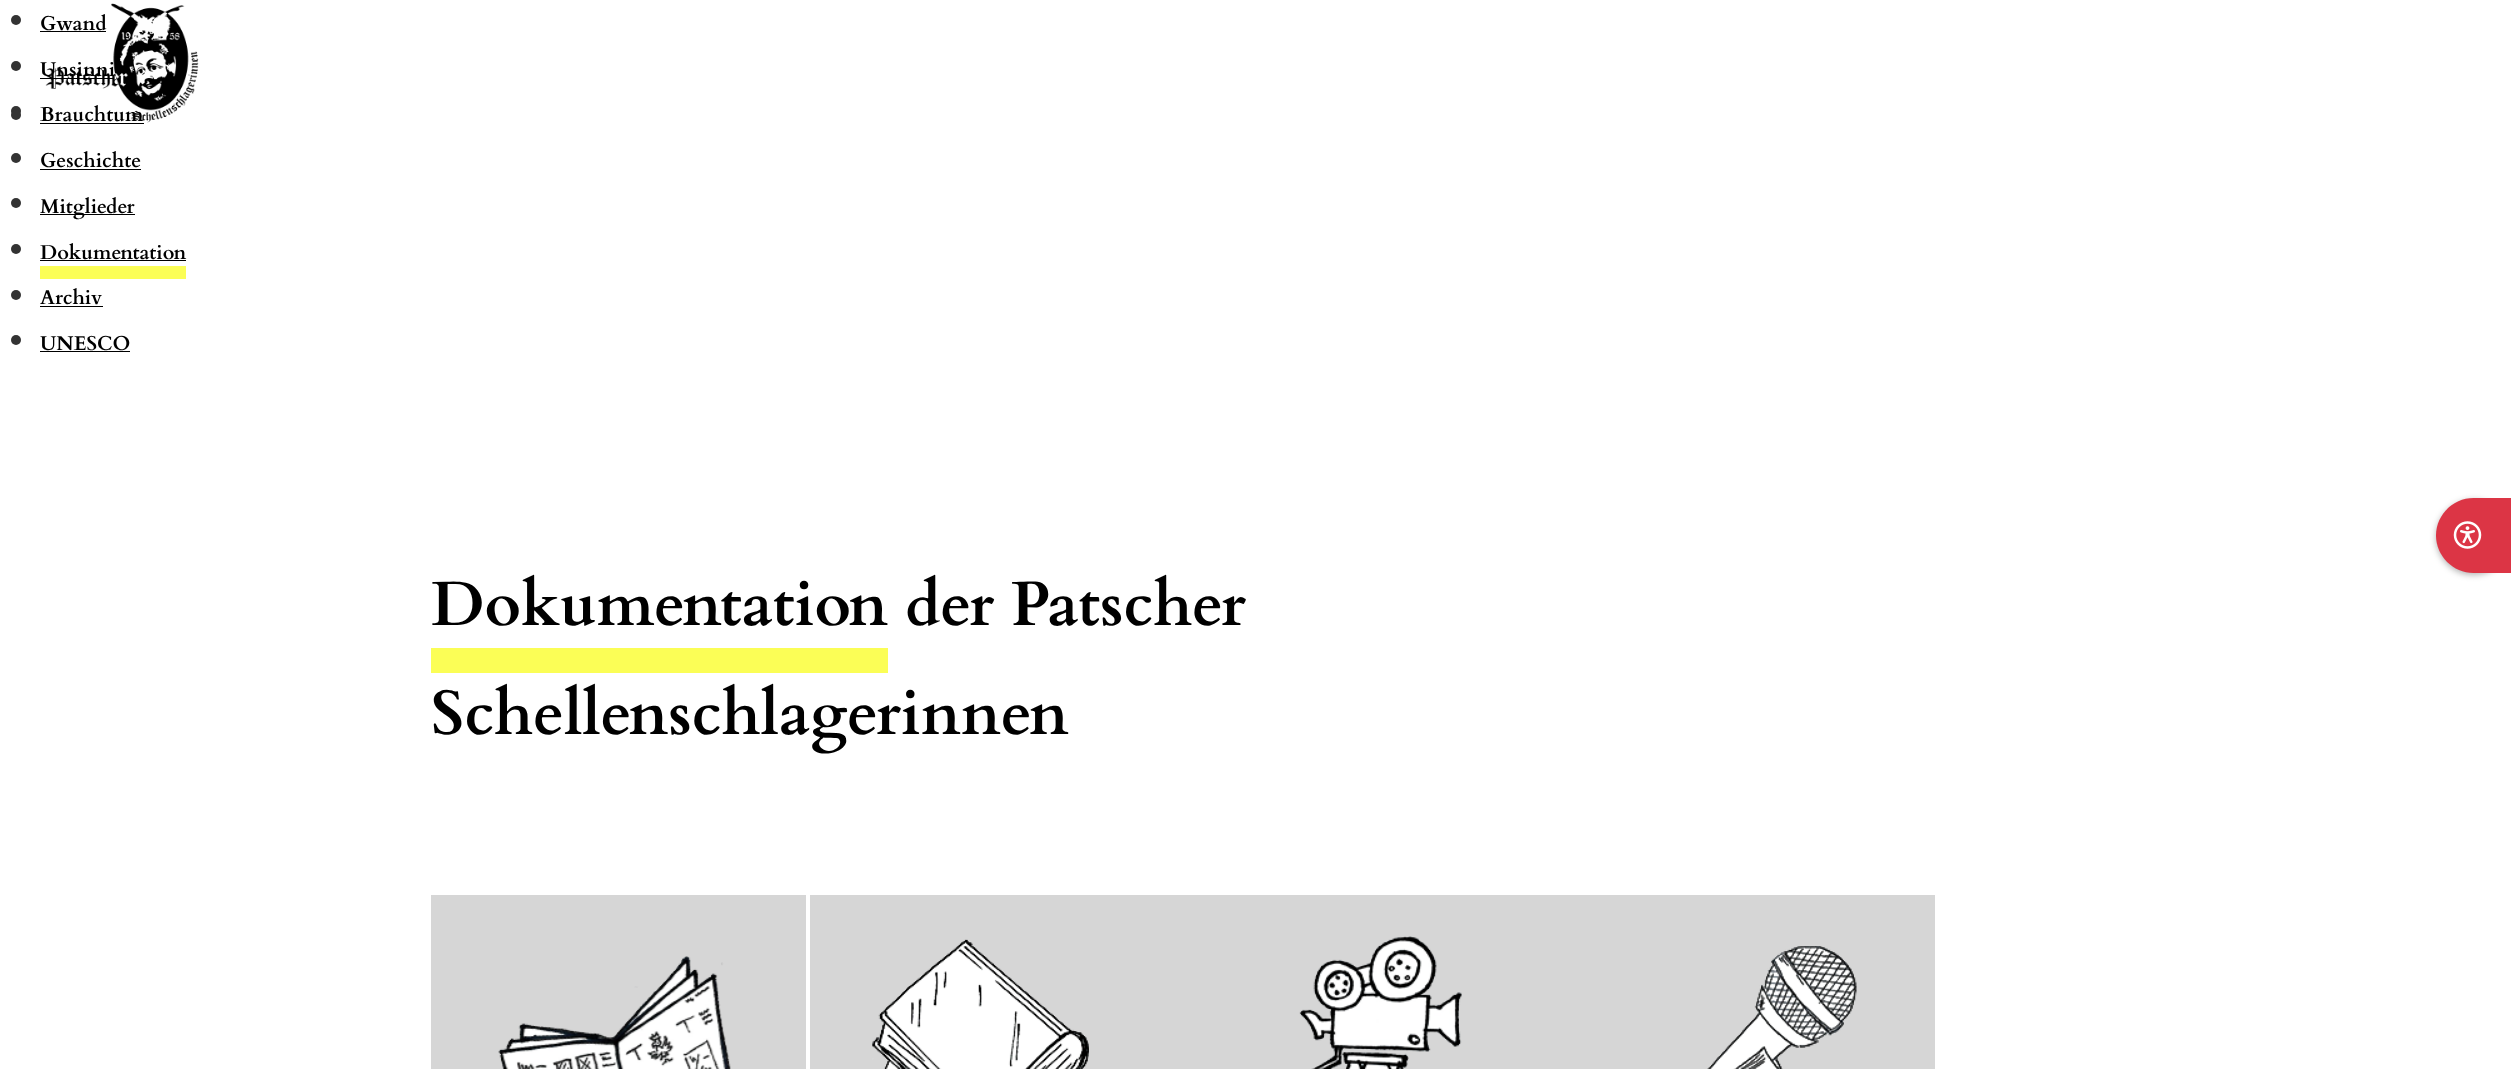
<?xml version="1.0" encoding="UTF-8"?>
<svg xmlns="http://www.w3.org/2000/svg" xmlns:xlink="http://www.w3.org/1999/xlink" width="2511" height="1069">
  <rect width="100%" height="100%" fill="#ffffff" />
  <circle cx="16" cy="111" r="5" fill="#333333" />
  <circle cx="16" cy="115" r="5" fill="#333333" />
  <circle cx="16" cy="20" r="5" fill="#333333" />
  <rect x="40" y="31" width="66" height="1" fill="#000000" />
  <circle cx="16" cy="66" r="5" fill="#333333" />
  <rect x="40" y="78" width="73" height="1" fill="#000000" />
  <rect x="40" y="123" width="104" height="1" fill="#000000" />
  <circle cx="16" cy="158" r="5" fill="#333333" />
  <rect x="40" y="169" width="101" height="1" fill="#000000" />
  <circle cx="16" cy="203" r="5" fill="#333333" />
  <rect x="40" y="214" width="95" height="1" fill="#000000" />
  <circle cx="16" cy="249" r="5" fill="#333333" />
  <rect x="40" y="266" width="146" height="13" fill="#fbfe56" />
  <rect x="40" y="260" width="146" height="1" fill="#000000" />
  <circle cx="16" cy="295" r="5" fill="#333333" />
  <rect x="40" y="306" width="63" height="1" fill="#000000" />
  <circle cx="16" cy="340" r="5" fill="#333333" />
  <rect x="40" y="351" width="90" height="1" fill="#000000" />
  <rect x="431" y="648" width="457" height="25" fill="#fbfe56" />
  <rect x="431" y="895" width="375" height="174" fill="#d6d6d6" />
  <image x="498" y="956" width="233" height="113" xlink:href="image2.png" />
  <image x="498" y="956" width="233" height="113" xlink:href="image3.png" />
  <rect x="810" y="895" width="1125" height="174" fill="#d6d6d6" />
  <image x="872" y="939" width="217" height="130" xlink:href="image4.png" />
  <image x="872" y="939" width="217" height="130" xlink:href="image5.png" />
  <image x="1299" y="936" width="163" height="133" xlink:href="image6.png" />
  <image x="1299" y="936" width="163" height="133" xlink:href="image7.png" />
  <image x="1707" y="946" width="150" height="123" xlink:href="image8.png" />
  <image x="1707" y="946" width="150" height="123" xlink:href="image9.png" />
  <rect x="2436" y="500" width="75" height="75" rx="37.5" fill="#000000" fill-opacity="0.3" filter="blur(3px)" />
  <path d="M 2473.5 498 h 37.5 v 75 h -37.5 c -20.5 0 -37.5 -17 -37.5 -37.5 c 0 -20.5 17 -37.5 37.5 -37.5 z" fill="#dc3545" />
  <image x="2453" y="521" width="29" height="28" xlink:href="image10.png" />
  <text x="40" y="30" style="font-family: Cardo; font-size: 20px; font-weight: bold; fill: #000000">Gwand</text>
  <text x="40" y="76" style="font-family: Cardo; font-size: 20px; font-weight: bold; fill: #000000">Unsinni</text>
  <text x="40" y="121" style="font-family: Cardo; font-size: 20px; font-weight: bold; fill: #000000">Brauchtum</text>
  <image x="45" y="3" width="154" height="120" xlink:href="image1.png" />
  <text x="40" y="167" style="font-family: Cardo; font-size: 20px; font-weight: bold; fill: #000000">Geschichte</text>
  <text x="40" y="213" style="font-family: Cardo; font-size: 20px; font-weight: bold; fill: #000000">Mitglieder</text>
  <text x="40" y="259" style="font-family: Cardo; font-size: 20px; font-weight: bold; fill: #000000">Dokumentation</text>
  <text x="40" y="304" style="font-family: Cardo; font-size: 20px; font-weight: bold; fill: #000000">Archiv</text>
  <text x="40" y="350" style="font-family: Cardo; font-size: 20px; font-weight: bold; fill: #000000">UNESCO</text>
  <text x="431" y="625" style="font-family: Cardo; font-size: 62.5px; font-weight: bold; fill: #000000">Dokumentation der Patscher</text>
  <text x="431" y="734" style="font-family: Cardo; font-size: 62.5px; font-weight: bold; fill: #000000">Schellenschlagerinnen</text>
</svg>
